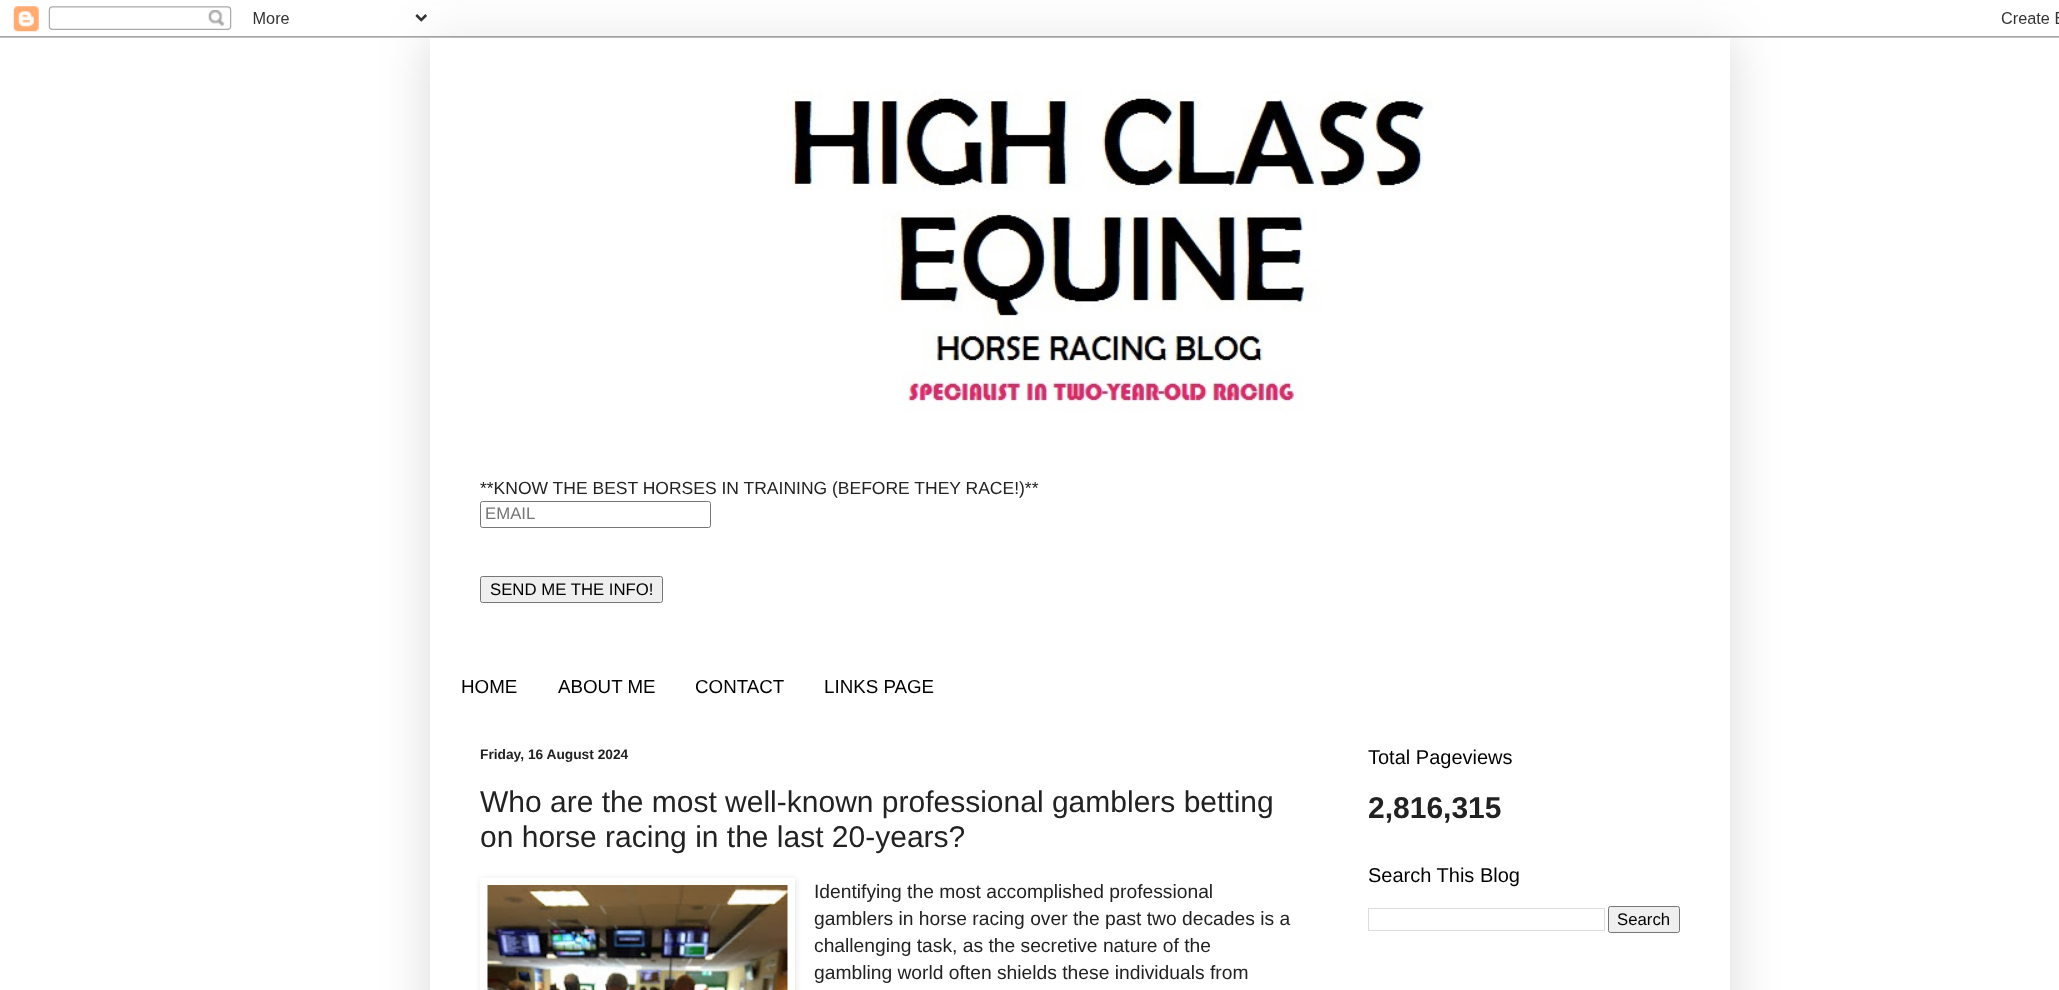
<?xml version="1.0" encoding="UTF-8"?>
<svg xmlns="http://www.w3.org/2000/svg" xmlns:xlink="http://www.w3.org/1999/xlink" width="2059" height="990">
  <defs>
    <clipPath id="clip1"><path d="M 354 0 h 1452 v 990 h -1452 z m 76 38 h 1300 v 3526 h -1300 z" clip-rule="evenodd" /></clipPath>
    <clipPath id="clip2"><path d="M 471 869 h 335 v 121 h -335 z m 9 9 h 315 v 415 h -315 z" clip-rule="evenodd" /></clipPath>
  </defs>
  <rect width="100%" height="100%" fill="#ffffff" />
  <g clip-path="url(#clip1)">
    <rect x="430" y="38" width="1300" height="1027" fill="#000000" fill-opacity="0.15" filter="blur(25px)" />
  </g>
  <image x="0" y="6" width="2059" height="32" xlink:href="image1.png" />
  <image x="785" y="90" width="648" height="321" xlink:href="image2.png" />
  <rect x="480.5" y="501.5" width="230" height="26" rx="2" fill="none" stroke="#767676" />
  <rect x="480.5" y="576.5" width="182" height="26" rx="2" fill="#efefef" stroke="#767676" />
  <g clip-path="url(#clip2)">
    <rect x="481" y="879" width="315" height="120" fill="#000000" fill-opacity="0.1" filter="blur(3px)" />
  </g>
  <image x="487" y="885" width="301" height="105" xlink:href="image3.png" />
  <rect x="1368.5" y="908.5" width="236" height="22" fill="none" stroke="#dddddd" />
  <rect x="1608.5" y="906.5" width="71" height="26" rx="2" fill="#efefef" stroke="#767676" />
  <text x="480" y="494" style="font-family: Liberation Sans; font-size: 17.5px; fill: #222222">**KNOW THE BEST HORSES IN TRAINING (BEFORE THEY RACE!)**</text>
  <text x="485" y="519" style="font-family: Liberation Sans; font-size: 16.75px; fill: #757575">EMAIL</text>
  <text x="490" y="595" style="font-family: Liberation Sans; font-size: 16.75px; fill: #000000">SEND ME THE INFO!</text>
  <text x="461" y="693" style="font-family: Liberation Sans; font-size: 18.75px; fill: #000000">HOME</text>
  <text x="558" y="693" style="font-family: Liberation Sans; font-size: 18.75px; fill: #000000">ABOUT ME</text>
  <text x="695" y="693" style="font-family: Liberation Sans; font-size: 18.75px; fill: #000000">CONTACT</text>
  <text x="824" y="693" style="font-family: Liberation Sans; font-size: 18.75px; fill: #000000">LINKS PAGE</text>
  <text x="480" y="759" style="font-family: Liberation Sans; font-size: 13.75px; font-weight: bold; fill: #222222">Friday, 16 August 2024</text>
  <text x="480" y="812" style="font-family: Liberation Sans; font-size: 30px; fill: #222222">Who are the most well-known professional gamblers betting</text>
  <text x="480" y="847" style="font-family: Liberation Sans; font-size: 30px; fill: #222222">on horse racing in the last 20-years?</text>
  <text x="814" y="898" style="font-family: Liberation Sans; font-size: 19.25px; fill: #222222">Identifying the most accomplished professional</text>
  <text x="814" y="925" style="font-family: Liberation Sans; font-size: 19.25px; fill: #222222">gamblers in horse racing over the past two decades is a</text>
  <text x="814" y="952" style="font-family: Liberation Sans; font-size: 19.25px; fill: #222222">challenging task, as the secretive nature of the</text>
  <text x="814" y="979" style="font-family: Liberation Sans; font-size: 19.25px; fill: #222222">gambling world often shields these individuals from</text>
  <text x="1368" y="764" style="font-family: Liberation Sans; font-size: 20px; fill: #000000">Total Pageviews</text>
  <text x="1368" y="818" style="font-family: Liberation Sans; font-size: 30px; font-weight: bold; fill: #222222">2,816,315</text>
  <text x="1368" y="882" style="font-family: Liberation Sans; font-size: 20px; fill: #000000">Search This Blog</text>
  <text x="1617" y="925" style="font-family: Liberation Sans; font-size: 16.75px; fill: #000000">Search</text>
</svg>
